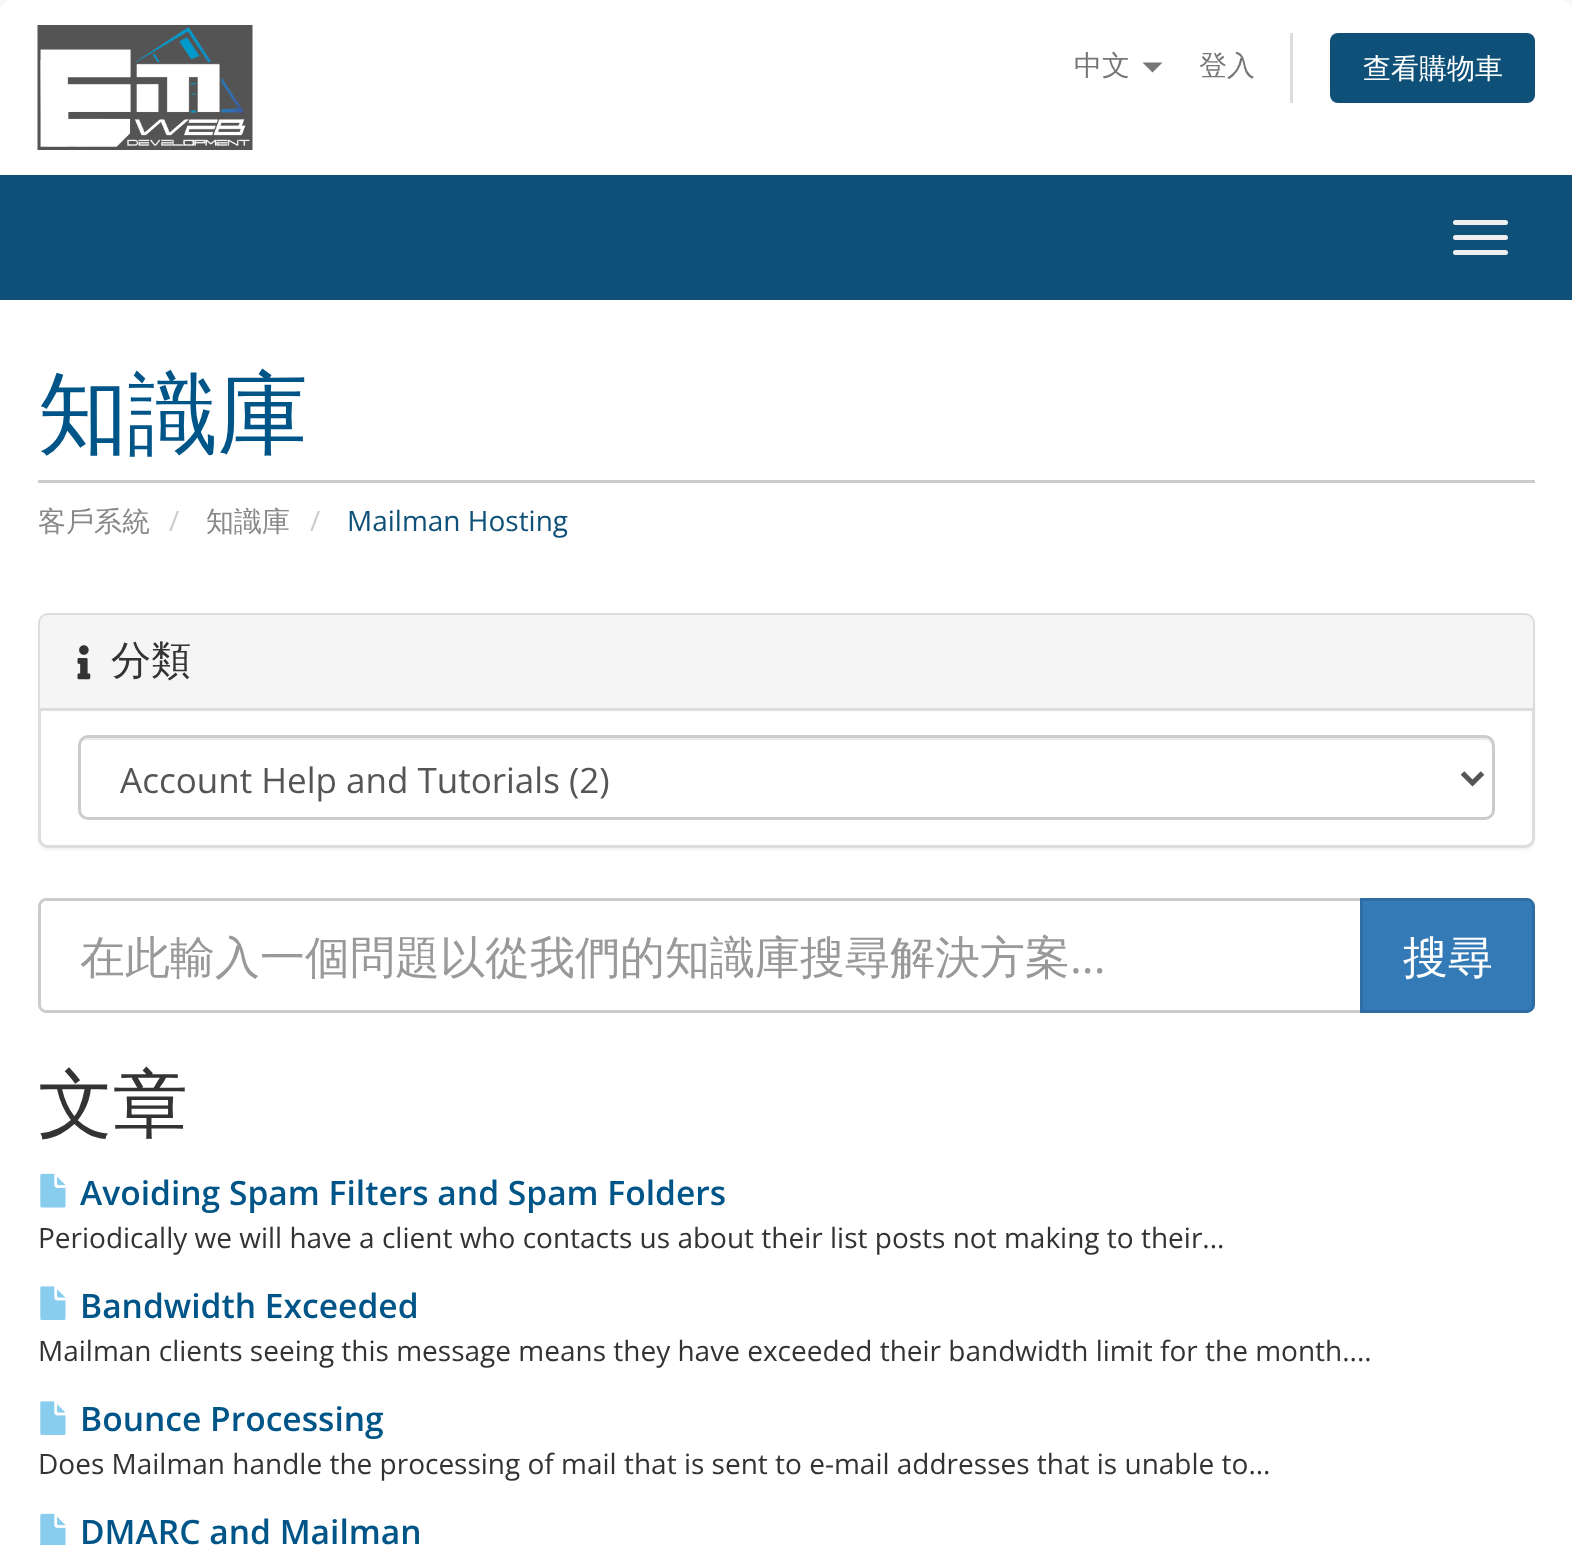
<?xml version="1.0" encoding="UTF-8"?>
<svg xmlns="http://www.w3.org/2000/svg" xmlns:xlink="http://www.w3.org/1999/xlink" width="1572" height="1545">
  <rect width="100%" height="100%" fill="#f8f8f8" />
  <path d="M 13 0 h 1547 c 7 0 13 6 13 13 v 162 h -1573 v -162 c 0 -7 6 -13 13 -13 z" fill="#ffffff" />
  <image x="37" y="25" width="216" height="125" xlink:href="image1.png" />
  <path d="M 1142.5 62.5 h 20 l -10 10 z" fill="#777777" />
  <rect x="1290" y="33" width="3" height="70" fill="#dddddd" />
  <rect x="1330" y="33" width="205" height="70" rx="8" fill="#0e5077" />
  <rect y="175" width="1572" height="125" fill="#0e5077" />
  <rect x="1453" y="220" width="55" height="5" rx="2.5" fill="#eeeeee" />
  <rect x="1453" y="235" width="55" height="5" rx="2.5" fill="#eeeeee" />
  <rect x="1453" y="250" width="55" height="5" rx="2.5" fill="#eeeeee" />
  <rect y="300" width="1572" height="1245" fill="#ffffff" />
  <rect x="38" y="480" width="1497" height="3" fill="#cccccc" />
  <rect x="38" y="615" width="1497" height="235" rx="10" fill="#000000" fill-opacity="0.05" filter="blur(1px)" />
  <rect x="39.5" y="614.5" width="1494" height="232" rx="8.5" fill="#ffffff" stroke="#dddddd" stroke-width="3" />
  <path d="M 48 615 h 1477 c 4.5 0 8 3.5 8 8 v 87 h -1493 v -87 c 0 -4.5 3.5 -8 8 -8 z" fill="#f5f5f5" />
  <rect x="40" y="708" width="1493" height="3" fill="#dddddd" />
  <image x="77" y="645" width="14" height="35" xlink:href="image2.png" />
  <path d="M 88 740 h 1397 c 4 0 7 3 7 8 v 66 c 1 -1 1 -2 1 -4 v -64 c 0 -4 -4 -8 -8 -8 h -1397 c -4 0 -8 4 -8 8 v 2 c 0 -5 3 -8 8 -8 z" fill="#ececec" />
  <rect x="79.5" y="736.5" width="1414" height="82" rx="8.5" fill="none" stroke="#cccccc" stroke-width="3" />
  <path d="M 1462.5 773 l 10 10 l 10 -10" fill="none" stroke="#555555" stroke-width="5" />
  <path d="M 46 899.5 h 1315.5 v 112 h -1315.5 c -3.5 0 -6.5 -3 -6.5 -6.5 v -99 c 0 -3.5 3 -6.5 6.5 -6.5 z" fill="none" stroke="#cccccc" stroke-width="3" />
  <path d="M 1361.5 899.5 h 165.5 c 3.5 0 6.5 3 6.5 6.5 v 99 c 0 3.5 -3 6.5 -6.5 6.5 h -165.5 z" fill="#337ab7" stroke="#2e6da4" stroke-width="3" />
  <image x="40" y="1173" width="26" height="35" xlink:href="image3.png" />
  <image x="40" y="1286" width="26" height="34" xlink:href="image4.png" />
  <image x="40" y="1401" width="26" height="34" xlink:href="image4.png" />
  <image x="40" y="1513" width="26" height="32" xlink:href="image5.png" />
  <text x="1074" y="75" style="font-family: WenQuanYi Zen Hei; font-size: 28px; font-weight: 500; fill: #777777">中文</text>
  <text x="1199" y="75" style="font-family: WenQuanYi Zen Hei; font-size: 28px; font-weight: 500; fill: #777777">登入</text>
  <text x="1363" y="78" style="font-family: WenQuanYi Zen Hei; font-size: 28px; font-weight: 500; fill: #ffffff">查看購物車</text>
  <text x="38" y="445" style="font-family: WenQuanYi Zen Hei; font-size: 90px; font-weight: 500; fill: #005588">知識庫</text>
  <text x="38" y="531" style="font-family: WenQuanYi Zen Hei; font-size: 28px; font-weight: 500; fill: #888888">客戶系統</text>
  <text x="169" y="531" style="font-family: Open Sans; font-size: 28px; fill: #cccccc">/</text>
  <text x="206" y="531" style="font-family: WenQuanYi Zen Hei; font-size: 28px; font-weight: 500; fill: #888888">知識庫</text>
  <text x="310" y="531" style="font-family: Open Sans; font-size: 28px; fill: #cccccc">/</text>
  <text x="347" y="531" style="font-family: Open Sans; font-size: 28px; fill: #0e5077">Mailman Hosting</text>
  <text x="111" y="674" style="font-family: WenQuanYi Zen Hei; font-size: 40px; font-weight: 500; fill: #333333">分類</text>
  <text x="120" y="793" style="font-family: Open Sans; font-size: 35px; fill: #555555">Account Help and Tutorials (2)</text>
  <text x="80" y="973" style="font-family: WenQuanYi Zen Hei; font-size: 45px; font-weight: 500; fill: #999999">在此輸入一個問題以從我們的知識庫搜尋解決方案</text>
  <text x="1070" y="973" style="font-family: Open Sans; font-size: 45px; fill: #999999">...</text>
  <text x="1403" y="973" style="font-family: WenQuanYi Zen Hei; font-size: 45px; font-weight: 500; fill: #ffffff">搜尋</text>
  <text x="38" y="1130" style="font-family: WenQuanYi Zen Hei; font-size: 75px; font-weight: 500; fill: #333333">文章</text>
  <text x="80" y="1205" style="font-family: Open Sans; font-size: 33.6px; font-weight: 600; fill: #005588">Avoiding Spam Filters and Spam Folders</text>
  <text x="38" y="1248" style="font-family: Open Sans; font-size: 28px; fill: #333333">Periodically we will have a client who contacts us about their list posts not making to their...</text>
  <text x="80" y="1318" style="font-family: Open Sans; font-size: 33.6px; font-weight: 600; fill: #005588">Bandwidth Exceeded</text>
  <text x="38" y="1361" style="font-family: Open Sans; font-size: 28px; fill: #333333">Mailman clients seeing this message means they have exceeded their bandwidth limit for the month....</text>
  <text x="80" y="1431" style="font-family: Open Sans; font-size: 33.6px; font-weight: 600; fill: #005588">Bounce Processing</text>
  <text x="38" y="1474" style="font-family: Open Sans; font-size: 28px; fill: #333333">Does Mailman handle the processing of mail that is sent to e-mail addresses that is unable to...</text>
  <text x="80" y="1544" style="font-family: Open Sans; font-size: 33.6px; font-weight: 600; fill: #005588">DMARC and Mailman</text>
</svg>
